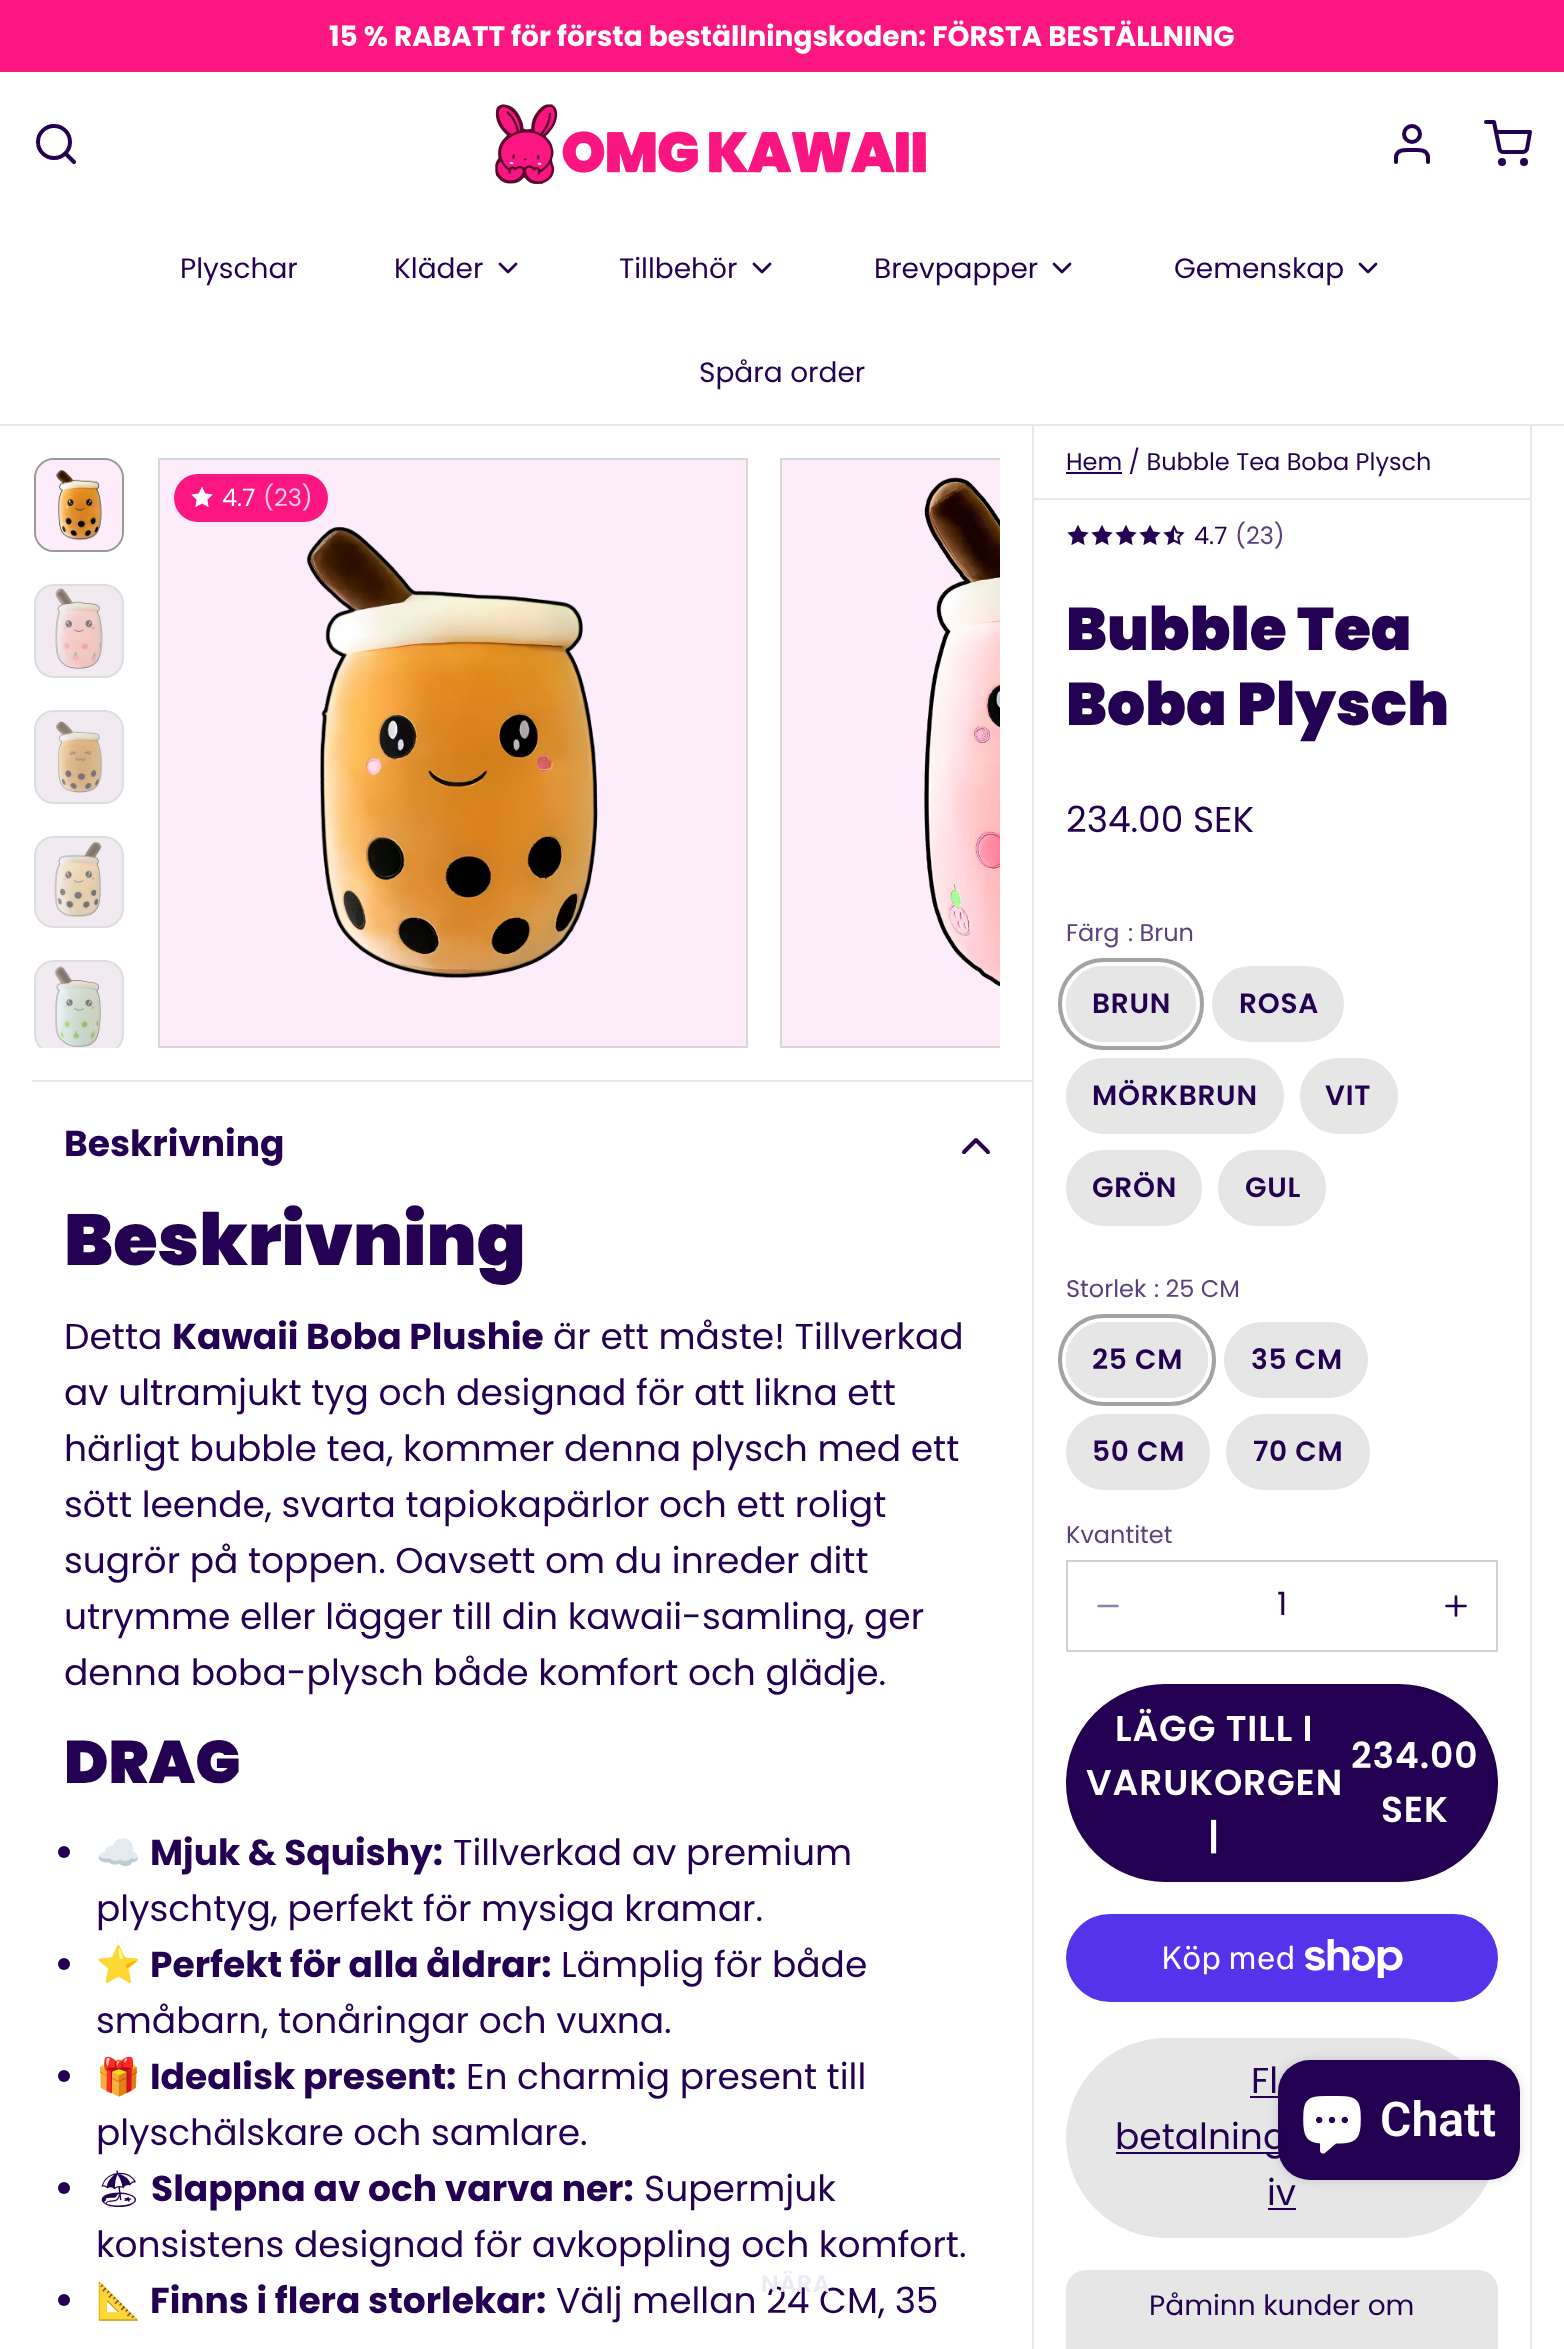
<?xml version="1.0" encoding="UTF-8"?>
<svg xmlns="http://www.w3.org/2000/svg" xmlns:xlink="http://www.w3.org/1999/xlink" width="1564" height="2349">
  <defs>
    <clipPath id="clip1"><rect x="32" y="426" width="94" height="622" /></clipPath>
    <clipPath id="clip2"><rect x="158" y="426" width="842" height="622" /></clipPath>
  </defs>
  <rect width="100%" height="100%" fill="#ffffff" />
  <rect width="1564" height="72" fill="#fb1681" />
  <rect y="424" width="1564" height="2" fill="#e8e8e8" />
  <circle cx="54" cy="142" r="16" fill="none" stroke="#230051" stroke-width="4" />
  <path d="M 74 162 l -8.5 -8.5" fill="none" stroke="#230051" stroke-width="4" stroke-linecap="round" stroke-linejoin="round" />
  <image x="495" y="104" width="431" height="80" xlink:href="image1.png" />
  <path d="M 1428 162 v -5.5 c -1.5 -8 -10 -6.5 -16 -6.5 c -6 0 -14.5 -1.5 -16 6.5 v 5.5" fill="none" stroke="#230051" stroke-width="4" stroke-linecap="round" stroke-linejoin="round" />
  <circle cx="1412" cy="134" r="8" fill="none" stroke="#230051" stroke-width="4" />
  <circle cx="1502" cy="162" r="2" fill="none" stroke="#230051" stroke-width="4" />
  <circle cx="1524" cy="162" r="2" fill="none" stroke="#230051" stroke-width="4" />
  <path d="M 1486 122 h 8 l 5.5 27 c 0 1.5 2 3 4 3 h 19.5 c 1.5 0 3.5 -1.5 4 -3 l 3 -17 h -34" fill="none" stroke="#230051" stroke-width="4" stroke-linecap="round" stroke-linejoin="round" />
  <path d="M 500 264 l 8 8 l 8 -8" fill="none" stroke="#230051" stroke-width="2.7" stroke-linecap="round" stroke-linejoin="round" />
  <path d="M 754 264 l 8 8 l 8 -8" fill="none" stroke="#230051" stroke-width="2.7" stroke-linecap="round" stroke-linejoin="round" />
  <path d="M 1054 264 l 8 8 l 8 -8" fill="none" stroke="#230051" stroke-width="2.7" stroke-linecap="round" stroke-linejoin="round" />
  <path d="M 1360 264 l 8 8 l 8 -8" fill="none" stroke="#230051" stroke-width="2.7" stroke-linecap="round" stroke-linejoin="round" />
  <rect x="34" y="458" width="90" height="94" rx="20" fill="#e6e6e6" />
  <rect x="35" y="459" width="88" height="92" rx="19" fill="none" stroke="#666666" stroke-opacity="0.6" stroke-width="2" />
  <image x="36" y="460" width="86" height="90" xlink:href="image2.png" />
  <rect x="34" y="584" width="90" height="94" rx="20" fill="#e6e6e6" />
  <rect x="34" y="584" width="90" height="94" rx="20" fill="#e6e6e6" fill-opacity="0.5" />
  <rect x="35" y="585" width="88" height="92" rx="19" fill="none" stroke="#b3b3b3" stroke-opacity="0.15" stroke-width="2" />
  <image x="36" y="586" width="86" height="90" xlink:href="image3.png" />
  <rect x="34" y="710" width="90" height="94" rx="20" fill="#e6e6e6" />
  <rect x="34" y="710" width="90" height="94" rx="20" fill="#e6e6e6" fill-opacity="0.5" />
  <rect x="35" y="711" width="88" height="92" rx="19" fill="none" stroke="#b3b3b3" stroke-opacity="0.15" stroke-width="2" />
  <image x="36" y="712" width="86" height="90" xlink:href="image4.png" />
  <rect x="34" y="836" width="90" height="92" rx="20" fill="#e6e6e6" />
  <rect x="34" y="836" width="90" height="92" rx="20" fill="#e6e6e6" fill-opacity="0.5" />
  <rect x="35" y="837" width="88" height="90" rx="19" fill="none" stroke="#b3b3b3" stroke-opacity="0.15" stroke-width="2" />
  <image x="36" y="838" width="86" height="88" xlink:href="image5.png" />
  <g clip-path="url(#clip1)">
    <rect x="34" y="960" width="90" height="94" rx="20" fill="#e6e6e6" />
    <rect x="34" y="960" width="90" height="94" rx="20" fill="#e6e6e6" fill-opacity="0.5" />
    <rect x="35" y="961" width="88" height="92" rx="19" fill="none" stroke="#b3b3b3" stroke-opacity="0.15" stroke-width="2" />
  </g>
  <image x="36" y="962" width="86" height="86" xlink:href="image6.png" />
  <rect x="159" y="459" width="588" height="588" fill="none" stroke="#d7d7d7" stroke-width="2" />
  <image x="160" y="460" width="586" height="586" xlink:href="image7.png" />
  <g clip-path="url(#clip2)">
    <rect x="781" y="459" width="586" height="588" fill="none" stroke="#d7d7d7" stroke-width="2" />
  </g>
  <image x="782" y="460" width="218" height="586" xlink:href="image8.png" />
  <rect x="174" y="474" width="154" height="48" rx="24" fill="#fb1681" />
  <image x="191" y="487" width="22" height="20" xlink:href="image9.png" />
  <rect x="32" y="1080" width="1000" height="2" fill="#e8e8e8" />
  <path d="M 988 1152 l -12 -12 l -12 12" fill="none" stroke="#230051" stroke-width="4" stroke-linecap="round" stroke-linejoin="round" />
  <circle cx="64" cy="1852" r="6" fill="#230051" />
  <circle cx="64" cy="1964" r="6" fill="#230051" />
  <circle cx="64" cy="2076" r="6" fill="#230051" />
  <circle cx="64" cy="2188" r="6" fill="#230051" />
  <circle cx="64" cy="2300" r="6" fill="#230051" />
  <rect x="1530" y="426" width="2" height="1923" fill="#e8e8e8" />
  <rect x="1032" y="426" width="2" height="1923" fill="#e8e8e8" />
  <rect x="1034" y="498" width="496" height="2" fill="#e8e8e8" />
  <rect x="1066" y="472" width="56" height="2" fill="#230051" />
  <image x="1067" y="525" width="22" height="20" xlink:href="image10.png" />
  <image x="1091" y="525" width="22" height="20" xlink:href="image10.png" />
  <image x="1115" y="525" width="22" height="20" xlink:href="image10.png" />
  <image x="1139" y="525" width="22" height="20" xlink:href="image10.png" />
  <image x="1163" y="525" width="22" height="20" xlink:href="image11.png" />
  <rect x="1062" y="962" width="138" height="84" rx="42" fill="none" stroke="#a3a3a3" stroke-width="8" />
  <rect x="1064" y="964" width="134" height="80" rx="40" fill="none" stroke="#ffffff" stroke-width="4" />
  <rect x="1066" y="966" width="130" height="76" rx="38" fill="#e6e6e6" />
  <rect x="1213" y="967" width="130" height="74" rx="37" fill="#e6e6e6" stroke="#e6e6e6" stroke-width="2" />
  <rect x="1067" y="1059" width="216" height="74" rx="37" fill="#e6e6e6" stroke="#e6e6e6" stroke-width="2" />
  <rect x="1301" y="1059" width="96" height="74" rx="37" fill="#e6e6e6" stroke="#e6e6e6" stroke-width="2" />
  <rect x="1067" y="1151" width="134" height="74" rx="37" fill="#e6e6e6" stroke="#e6e6e6" stroke-width="2" />
  <rect x="1219" y="1151" width="106" height="74" rx="37" fill="#e6e6e6" stroke="#e6e6e6" stroke-width="2" />
  <rect x="1062" y="1318" width="150" height="84" rx="42" fill="none" stroke="#a3a3a3" stroke-width="8" />
  <rect x="1064" y="1320" width="146" height="80" rx="40" fill="none" stroke="#ffffff" stroke-width="4" />
  <rect x="1066" y="1322" width="142" height="76" rx="38" fill="#e6e6e6" />
  <rect x="1225" y="1323" width="142" height="74" rx="37" fill="#e6e6e6" stroke="#e6e6e6" stroke-width="2" />
  <rect x="1067" y="1415" width="142" height="74" rx="37" fill="#e6e6e6" stroke="#e6e6e6" stroke-width="2" />
  <rect x="1227" y="1415" width="142" height="74" rx="37" fill="#e6e6e6" stroke="#e6e6e6" stroke-width="2" />
  <rect x="1067" y="1561" width="430" height="90" fill="none" stroke="#d1d1d1" stroke-width="2" />
  <path d="M 1098.5 1606 h 19" fill="none" stroke="#9180a8" stroke-width="2.7" stroke-linecap="round" stroke-linejoin="round" />
  <path d="M 1456 1596.5 v 19 m -9.5 -9.5 h 19" fill="none" stroke="#230051" stroke-width="2.7" stroke-linecap="round" stroke-linejoin="round" />
  <rect x="1067" y="1685" width="430" height="196" rx="98" fill="#230051" stroke="#230051" stroke-width="2" />
  <rect x="1066" y="1914" width="432" height="88" rx="44" fill="#5433eb" />
  <image x="1305" y="1939" width="98" height="39" xlink:href="image12.png" />
  <rect x="1066" y="2038" width="432" height="200" rx="100" fill="#e6e6e6" />
  <rect x="1250" y="2096" width="28" height="2" fill="#230051" />
  <rect x="1116" y="2152" width="163" height="2" fill="#230051" />
  <rect x="1268" y="2208" width="28" height="2" fill="#230051" />
  <rect x="1066" y="2270" width="432" height="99" rx="20" fill="#e6e6e6" />
  <rect x="1278" y="2060" width="242" height="120" rx="32" fill="#000000" fill-opacity="0.15" filter="blur(5px)" />
  <rect x="1278" y="2060" width="242" height="120" rx="32" fill="#230051" />
  <image x="1303" y="2096" width="58" height="58" xlink:href="image13.png" />
  <text x="329" y="46" style="font-family: Poppins; font-size: 28px; font-weight: bold; fill: #ffffff">15 % RABATT för första beställningskoden: FÖRSTA BESTÄLLNING</text>
  <text x="180" y="278" style="font-family: Poppins; font-size: 28px; fill: #230051">Plyschar</text>
  <text x="394" y="278" style="font-family: Poppins; font-size: 28px; fill: #230051">Kläder</text>
  <text x="619" y="278" style="font-family: Poppins; font-size: 28px; fill: #230051">Tillbehör</text>
  <text x="874" y="278" style="font-family: Poppins; font-size: 28px; fill: #230051">Brevpapper</text>
  <text x="1174" y="278" style="font-family: Poppins; font-size: 28px; fill: #230051">Gemenskap</text>
  <text x="699" y="382" style="font-family: Poppins; font-size: 28px; fill: #230051">Spåra order</text>
  <text x="222" y="506" style="font-family: Poppins; font-size: 24px; fill: #ffffff">4.7</text>
  <text x="263" y="506" style="font-family: Poppins; font-size: 24px; fill: #fec5e0">(23)</text>
  <text x="64" y="1156" style="font-family: Poppins; font-size: 36px; font-weight: bold; fill: #230051">Beskrivning</text>
  <text x="64" y="1265" style="font-family: Poppins; font-size: 72px; font-weight: 900; fill: #230051">Beskrivning</text>
  <text x="64" y="1349" style="font-family: Poppins; font-size: 36px; fill: #230051">Detta</text>
  <text x="172" y="1349" style="font-family: Poppins; font-size: 36px; font-weight: bold; fill: #230051">Kawaii Boba Plushie</text>
  <text x="553" y="1349" style="font-family: Poppins; font-size: 36px; fill: #230051">är ett måste! Tillverkad</text>
  <text x="64" y="1405" style="font-family: Poppins; font-size: 36px; fill: #230051">av ultramjukt tyg och designad för att likna ett</text>
  <text x="64" y="1461" style="font-family: Poppins; font-size: 36px; fill: #230051">härligt bubble tea, kommer denna plysch med ett</text>
  <text x="64" y="1517" style="font-family: Poppins; font-size: 36px; fill: #230051">sött leende, svarta tapiokapärlor och ett roligt</text>
  <text x="64" y="1573" style="font-family: Poppins; font-size: 36px; fill: #230051">sugrör på toppen. Oavsett om du inreder ditt</text>
  <text x="64" y="1629" style="font-family: Poppins; font-size: 36px; fill: #230051">utrymme eller lägger till din kawaii-samling, ger</text>
  <text x="64" y="1685" style="font-family: Poppins; font-size: 36px; fill: #230051">denna boba-plysch både komfort och glädje.</text>
  <text x="64" y="1783" style="font-family: Poppins; font-size: 60px; font-weight: 900; fill: #230051">DRAG</text>
  <text x="96" y="1865" style="font-family: Noto Color Emoji; font-size: 36px; fill: #230051">☁️</text>
  <text x="150" y="1865" style="font-family: Poppins; font-size: 36px; font-weight: bold; fill: #230051">Mjuk &amp; Squishy:</text>
  <text x="453" y="1865" style="font-family: Poppins; font-size: 36px; fill: #230051">Tillverkad av premium</text>
  <text x="96" y="1921" style="font-family: Poppins; font-size: 36px; fill: #230051">plyschtyg, perfekt för mysiga kramar.</text>
  <text x="96" y="1977" style="font-family: Noto Color Emoji; font-size: 36px; fill: #230051">⭐</text>
  <text x="150" y="1977" style="font-family: Poppins; font-size: 36px; font-weight: bold; fill: #230051">Perfekt för alla åldrar:</text>
  <text x="561" y="1977" style="font-family: Poppins; font-size: 36px; fill: #230051">Lämplig för både</text>
  <text x="96" y="2033" style="font-family: Poppins; font-size: 36px; fill: #230051">småbarn, tonåringar och vuxna.</text>
  <text x="96" y="2089" style="font-family: Noto Color Emoji; font-size: 36px; fill: #230051">🎁</text>
  <text x="150" y="2089" style="font-family: Poppins; font-size: 36px; font-weight: bold; fill: #230051">Idealisk present:</text>
  <text x="466" y="2089" style="font-family: Poppins; font-size: 36px; fill: #230051">En charmig present till</text>
  <text x="96" y="2145" style="font-family: Poppins; font-size: 36px; fill: #230051">plyschälskare och samlare.</text>
  <text x="96" y="2201" style="font-family: Noto Emoji; font-size: 36px; fill: #230051">🏖</text>
  <text x="151" y="2201" style="font-family: Poppins; font-size: 36px; font-weight: bold; fill: #230051">Slappna av och varva ner:</text>
  <text x="644" y="2201" style="font-family: Poppins; font-size: 36px; fill: #230051">Supermjuk</text>
  <text x="96" y="2257" style="font-family: Poppins; font-size: 36px; fill: #230051">konsistens designad för avkoppling och komfort.</text>
  <text x="96" y="2313" style="font-family: Noto Color Emoji; font-size: 36px; fill: #230051">📐</text>
  <text x="150" y="2313" style="font-family: Poppins; font-size: 36px; font-weight: bold; fill: #230051">Finns i flera storlekar:</text>
  <text x="556" y="2313" style="font-family: Poppins; font-size: 36px; fill: #230051">Välj mellan 24 CM, 35</text>
  <text x="1066" y="470" style="font-family: Poppins; font-size: 24px; fill: #230051">Hem / Bubble Tea Boba Plysch</text>
  <text x="1194" y="544" style="font-family: Poppins; font-size: 24px; fill: #230051">4.7</text>
  <text x="1235" y="544" style="font-family: Poppins; font-size: 24px; fill: #5a407d">(23)</text>
  <text x="1066" y="650" style="font-family: Poppins; font-size: 60px; font-weight: 900; fill: #230051">Bubble Tea</text>
  <text x="1066" y="725" style="font-family: Poppins; font-size: 60px; font-weight: 900; fill: #230051">Boba Plysch</text>
  <text x="1066" y="832" style="font-family: Poppins; font-size: 36px; fill: #230051">234.00 SEK</text>
  <text x="1066" y="941" style="font-family: Poppins; font-size: 24px; fill: #5a407d">Färg</text>
  <text x="1128" y="941" style="font-family: Poppins; font-size: 24px; fill: #5a407d">: Brun</text>
  <text x="1092" y="1013" style="font-family: Poppins; font-size: 28px; font-weight: 600; letter-spacing: 0.75px; fill: #230051">BRUN</text>
  <text x="1239" y="1013" style="font-family: Poppins; font-size: 28px; font-weight: 600; letter-spacing: 0.75px; fill: #230051">ROSA</text>
  <text x="1092" y="1105" style="font-family: Poppins; font-size: 28px; font-weight: 600; letter-spacing: 0.75px; fill: #230051">MÖRKBRUN</text>
  <text x="1325" y="1105" style="font-family: Poppins; font-size: 28px; font-weight: 600; letter-spacing: 0.75px; fill: #230051">VIT</text>
  <text x="1092" y="1197" style="font-family: Poppins; font-size: 28px; font-weight: 600; letter-spacing: 0.75px; fill: #230051">GRÖN</text>
  <text x="1245" y="1197" style="font-family: Poppins; font-size: 28px; font-weight: 600; letter-spacing: 0.75px; fill: #230051">GUL</text>
  <text x="1066" y="1297" style="font-family: Poppins; font-size: 24px; fill: #5a407d">Storlek</text>
  <text x="1154" y="1297" style="font-family: Poppins; font-size: 24px; fill: #5a407d">: 25 CM</text>
  <text x="1092" y="1369" style="font-family: Poppins; font-size: 28px; font-weight: 600; letter-spacing: 0.75px; fill: #230051">25 CM</text>
  <text x="1251" y="1369" style="font-family: Poppins; font-size: 28px; font-weight: 600; letter-spacing: 0.75px; fill: #230051">35 CM</text>
  <text x="1092" y="1461" style="font-family: Poppins; font-size: 28px; font-weight: 600; letter-spacing: 0.75px; fill: #230051">50 CM</text>
  <text x="1253" y="1461" style="font-family: Poppins; font-size: 28px; font-weight: 600; letter-spacing: 0.75px; fill: #230051">70 CM</text>
  <text x="1066" y="1543" style="font-family: Poppins; font-size: 24px; fill: #5a407d">Kvantitet</text>
  <text x="1277" y="1615" style="font-family: Poppins; font-size: 32px; fill: #230051">1</text>
  <text x="1115" y="1741" style="font-family: Poppins; font-size: 36px; font-weight: 600; letter-spacing: 0.9px; fill: #ffffff">LÄGG TILL I</text>
  <text x="1086" y="1795" style="font-family: Poppins; font-size: 36px; font-weight: 600; letter-spacing: 0.9px; fill: #ffffff">VARUKORGEN</text>
  <text x="1351" y="1768" style="font-family: Poppins; font-size: 36px; font-weight: 600; letter-spacing: 0.9px; fill: #ffffff">234.00</text>
  <text x="1381" y="1822" style="font-family: Poppins; font-size: 36px; font-weight: 600; letter-spacing: 0.9px; fill: #ffffff">SEK</text>
  <text x="1208" y="1849" style="font-family: Poppins; font-size: 36px; font-weight: 600; letter-spacing: 0.9px; fill: #ffffff">|</text>
  <text x="1161" y="1969" style="font-family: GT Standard; font-size: 32px; fill: #ffffff">Köp med</text>
  <text x="1251" y="2093" style="font-family: Poppins; font-size: 36px; fill: #230051">Fl</text>
  <text x="1115" y="2149" style="font-family: Poppins; font-size: 36px; fill: #230051">betalning</text>
  <text x="1267" y="2205" style="font-family: Poppins; font-size: 36px; fill: #230051">iv</text>
  <text x="1149" y="2315" style="font-family: Poppins; font-size: 28px; fill: #230051">Påminn kunder om</text>
  <path d="M 608.5 2284 h 19" fill="none" stroke="#ffffff" stroke-width="2.7" stroke-linecap="round" stroke-linejoin="round" />
  <text x="761" y="2292" style="font-family: Poppins; font-size: 24px; font-weight: 600; letter-spacing: 0.5px; fill: #edeaf1">NÄRA</text>
  <text x="1380" y="2136" style="font-family: Roboto; font-size: 48px; font-weight: 600; fill: #ffffff">Chatt</text>
</svg>
